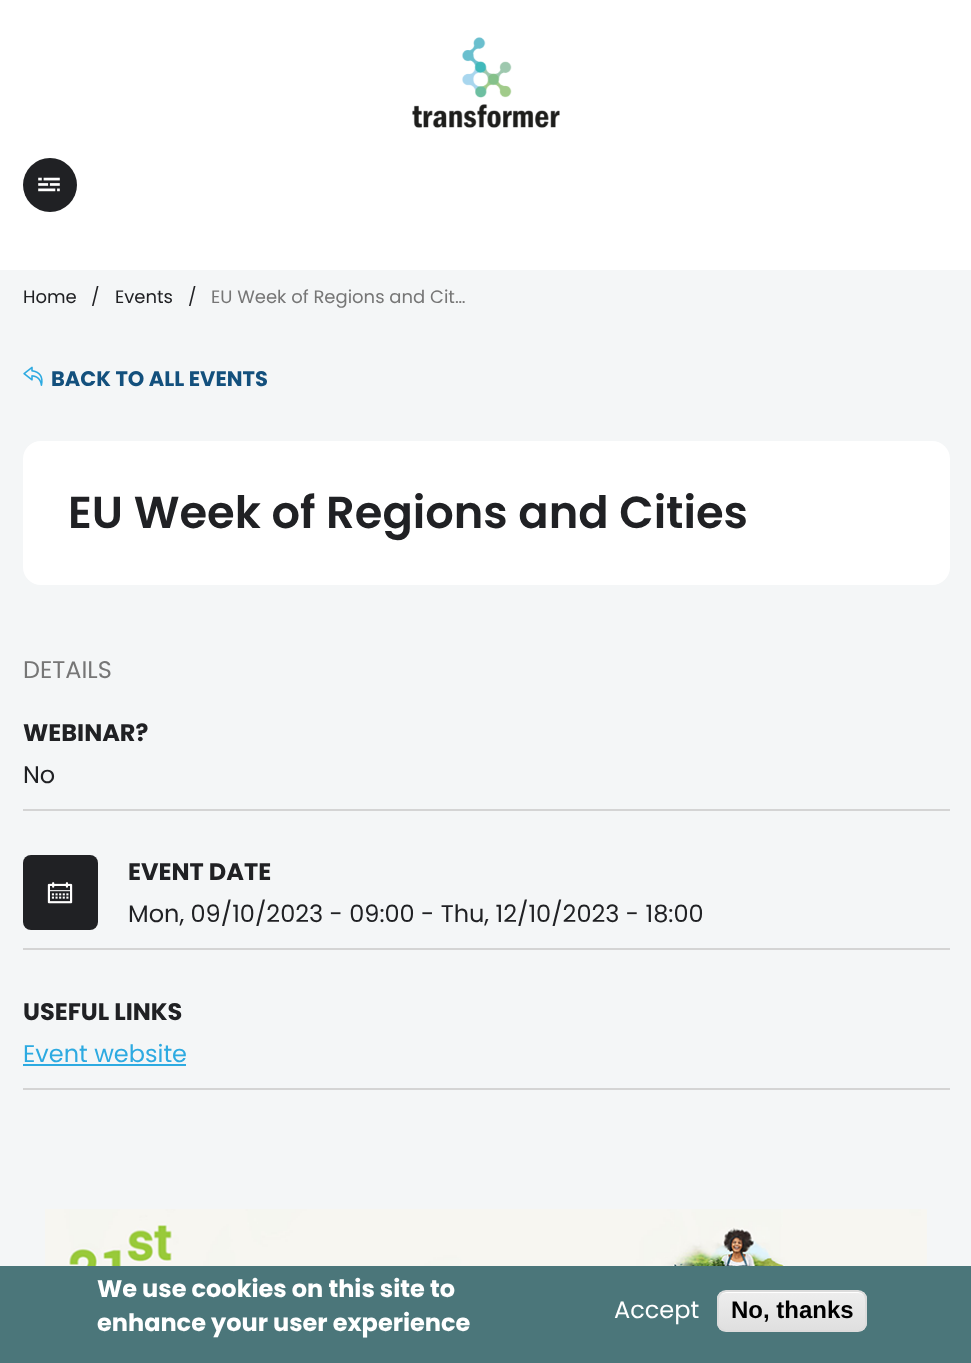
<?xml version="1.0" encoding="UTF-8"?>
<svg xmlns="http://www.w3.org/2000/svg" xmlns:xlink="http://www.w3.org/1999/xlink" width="971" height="1363">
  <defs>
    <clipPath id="clip1"><rect x="717" y="1290" width="150" height="42" rx="9" /></clipPath>
    <linearGradient id="g1" gradientUnits="userSpaceOnUse" x1="792" y1="1292" x2="792" y2="1331"><stop offset="0.05" stop-color="#ededed" /><stop offset="1" stop-color="#dfdfdf" /></linearGradient>
  </defs>
  <rect width="100%" height="100%" fill="#ffffff" />
  <image x="412" y="37" width="148" height="91" xlink:href="image1.png" />
  <circle cx="50" cy="185" r="27" fill="#202124" />
  <image x="38" y="177" width="22" height="15" xlink:href="image2.png" />
  <rect y="270" width="971" height="996" fill="#f4f6f7" />
  <image x="23" y="366" width="20" height="20" xlink:href="image3.png" />
  <rect x="23" y="441" width="927" height="144" rx="18" fill="#ffffff" />
  <rect x="23" y="809" width="927" height="2" fill="#d4d4d4" />
  <rect x="23" y="948" width="927" height="2" fill="#d4d4d4" />
  <rect x="23" y="855" width="75" height="75" rx="8" fill="#202124" />
  <image x="47" y="882" width="26" height="22" xlink:href="image4.png" />
  <rect x="23" y="1088" width="927" height="2" fill="#d4d4d4" />
  <rect x="23" y="1064" width="163" height="2" fill="#2daae1" />
  <image x="45" y="1209" width="882" height="57" xlink:href="image5.png" />
  <rect y="1266" width="971" height="97" fill="#4b767a" />
  <g clip-path="url(#clip1)">
    <rect x="717" y="1292" width="150" height="39" fill="url(#g1)" />
  </g>
  <path d="M 726 1293 h 132 c 4 0 8 3 8 7 c 0 -4 -4 -8 -8 -8 h -131 c -2 0 -4 1 -6 2 c 2 0 3 -1 5 -1 z" fill="#ffffff" />
  <rect x="718" y="1291" width="148" height="40" rx="8" fill="none" stroke="#dcdcdc" stroke-width="2" />
  <text x="23" y="303" style="font-family: Poppins; font-size: 18px; fill: #202124">Home</text>
  <text x="91" y="303" style="font-family: Poppins; font-size: 18px; fill: #202124">/</text>
  <text x="115" y="303" style="font-family: Poppins; font-size: 18px; fill: #202124">Events</text>
  <text x="188" y="303" style="font-family: Poppins; font-size: 18px; fill: #202124">/</text>
  <text x="211" y="303" style="font-family: Poppins; font-size: 18px; fill: #767676">EU Week of Regions and Cit…</text>
  <text x="51" y="386" style="font-family: Poppins; font-size: 21px; font-weight: bold; fill: #13507d">BACK TO ALL EVENTS</text>
  <text x="68" y="528" style="font-family: Poppins; font-size: 44.75px; font-weight: 600; fill: #202124">EU Week of Regions and Cities</text>
  <text x="23" y="678" style="font-family: Poppins; font-size: 24px; fill: #767676">DETAILS</text>
  <text x="23" y="741" style="font-family: Poppins; font-size: 24px; font-weight: bold; fill: #202124">WEBINAR?</text>
  <text x="23" y="783" style="font-family: Poppins; font-size: 24px; fill: #202124">No</text>
  <text x="128" y="880" style="font-family: Poppins; font-size: 24px; font-weight: bold; fill: #202124">EVENT DATE</text>
  <text x="128" y="922" style="font-family: Poppins; font-size: 24px; fill: #202124">Mon, 09/10/2023 - 09:00 - Thu, 12/10/2023 - 18:00</text>
  <text x="23" y="1020" style="font-family: Poppins; font-size: 24px; font-weight: bold; fill: #202124">USEFUL LINKS</text>
  <text x="23" y="1062" style="font-family: Poppins; font-size: 24px; fill: #2daae1">Event website</text>
  <text x="97" y="1297" style="font-family: Poppins; font-size: 24px; font-weight: bold; fill: #ffffff">We use cookies on this site to</text>
  <text x="97" y="1331" style="font-family: Poppins; font-size: 24px; font-weight: bold; fill: #ffffff">enhance your user experience</text>
  <text x="614" y="1318" style="font-family: Poppins; font-size: 24px; fill: #ffffff">Accept</text>
  <text x="731" y="1318" style="font-family: Liberation Sans; font-size: 24px; font-weight: bold; fill: #000000">No, thanks</text>
</svg>
